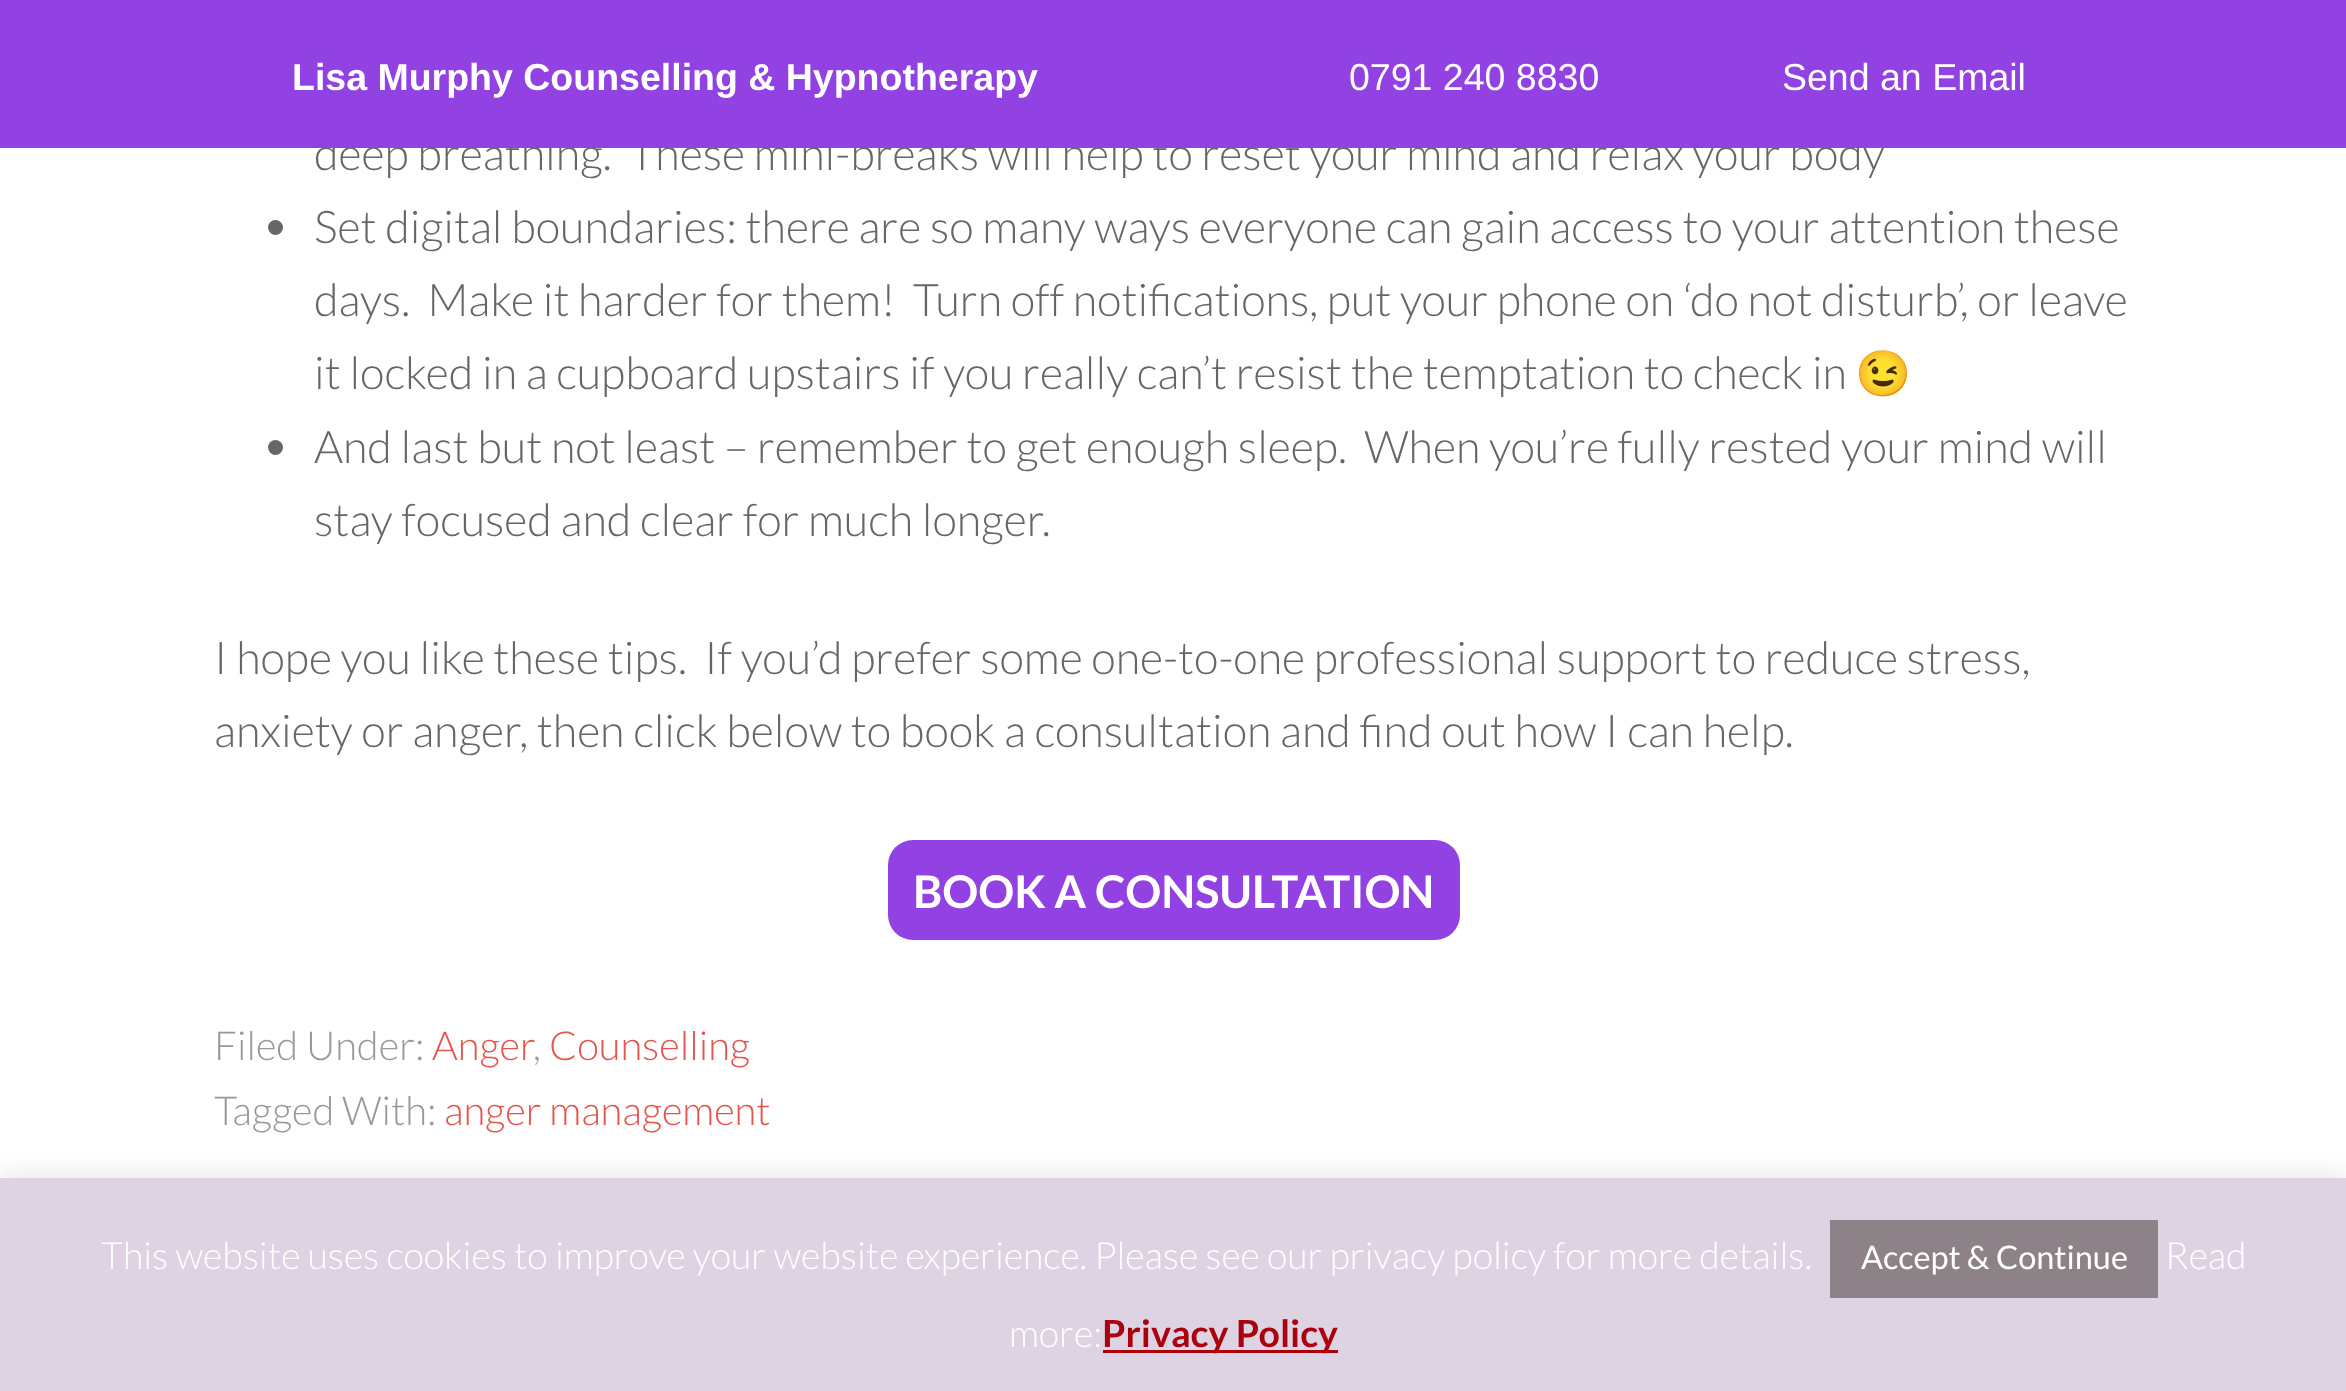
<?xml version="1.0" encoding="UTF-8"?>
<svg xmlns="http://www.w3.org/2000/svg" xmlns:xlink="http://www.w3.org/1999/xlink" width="2346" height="1391">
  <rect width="100%" height="100%" fill="#ffffff" />
  <circle cx="275.5" cy="227.5" r="7.5" fill="#666666" />
  <circle cx="275.5" cy="447.5" r="7.5" fill="#666666" />
  <rect x="888" y="840" width="572" height="100" rx="25" fill="#9241e2" />
  <rect y="1175" width="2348" height="215" fill="#acabab" fill-opacity="0.3" filter="blur(12.5px)" />
  <rect y="1178" width="2346" height="213" fill="#ded3e2" />
  <rect x="1830" y="1220" width="328" height="78" fill="#8c8287" />
  <rect x="1103" y="1350" width="235" height="3" fill="#ab000e" />
  <text x="314" y="170" style="font-family: Lato; font-size: 45px; font-weight: 300; fill: #666666" xml:space="preserve">deep breathing.  These mini-breaks will help to reset your mind and relax your body</text>
  <rect width="2346" height="148" fill="#9241e2" />
  <text x="1782" y="90" style="font-family: Liberation Sans; font-size: 37.5px; fill: #ffffff">Send an Email</text>
  <text x="1349" y="90" style="font-family: Liberation Sans; font-size: 37.5px; fill: #ffffff">0791 240 8830</text>
  <text x="292" y="90" style="font-family: Liberation Sans; font-size: 37.5px; font-weight: bold; fill: #ffffff">Lisa Murphy Counselling &amp; Hypnotherapy</text>
  <text x="314" y="243" style="font-family: Lato; font-size: 45px; font-weight: 300; fill: #666666">Set digital boundaries: there are so many ways everyone can gain access to your attention these</text>
  <text x="314" y="316" style="font-family: Lato; font-size: 45px; font-weight: 300; fill: #666666" xml:space="preserve">days.  Make it harder for them!  Turn off notifications, put your phone on ‘do not disturb’, or leave</text>
  <text x="314" y="389" style="font-family: Lato; font-size: 45px; font-weight: 300; fill: #666666">it locked in a cupboard upstairs if you really can’t resist the temptation to check in</text>
  <text x="1855" y="389" style="font-family: Noto Color Emoji; font-size: 45px; fill: #666666">😉</text>
  <text x="314" y="463" style="font-family: Lato; font-size: 45px; font-weight: 300; fill: #666666" xml:space="preserve">And last but not least – remember to get enough sleep.  When you’re fully rested your mind will</text>
  <text x="314" y="536" style="font-family: Lato; font-size: 45px; font-weight: 300; fill: #666666">stay focused and clear for much longer.</text>
  <text x="214" y="674" style="font-family: Lato; font-size: 45px; font-weight: 300; fill: #666666" xml:space="preserve">I hope you like these tips.  If you’d prefer some one-to-one professional support to reduce stress,</text>
  <text x="214" y="747" style="font-family: Lato; font-size: 45px; font-weight: 300; fill: #666666">anxiety or anger, then click below to book a consultation and find out how I can help.</text>
  <text x="913" y="908" style="font-family: Lato; font-size: 45px; font-weight: bold; fill: #ffffff">BOOK A CONSULTATION</text>
  <text x="214" y="1060" style="font-family: Lato; font-size: 40px; font-weight: 300; fill: #999999">Filed Under:</text>
  <text x="432" y="1060" style="font-family: Lato; font-size: 40px; font-weight: 300; fill: #e5554e">Anger</text>
  <text x="533" y="1060" style="font-family: Lato; font-size: 40px; font-weight: 300; fill: #999999">,</text>
  <text x="549" y="1060" style="font-family: Lato; font-size: 40px; font-weight: 300; fill: #e5554e">Counselling</text>
  <text x="214" y="1125" style="font-family: Lato; font-size: 40px; font-weight: 300; fill: #999999">Tagged With:</text>
  <text x="444" y="1125" style="font-family: Lato; font-size: 40px; font-weight: 300; fill: #e5554e">anger management</text>
  <text x="101" y="1269" style="font-family: Lato; font-size: 37.5px; font-weight: 300; fill: #ffffff">This website uses cookies to improve your website experience. Please see our privacy policy for more details.</text>
  <text x="1861" y="1269" style="font-family: Lato; font-size: 32.5px; fill: #ffffff">Accept &amp; Continue</text>
  <text x="2165" y="1269" style="font-family: Lato; font-size: 37.5px; font-weight: 300; fill: #ffffff">Read</text>
  <text x="1009" y="1347" style="font-family: Lato; font-size: 37.5px; font-weight: 300; fill: #ffffff">more:</text>
  <text x="1102" y="1347" style="font-family: Lato; font-size: 37.5px; font-weight: bold; fill: #ab000e">Privacy Policy</text>
</svg>
